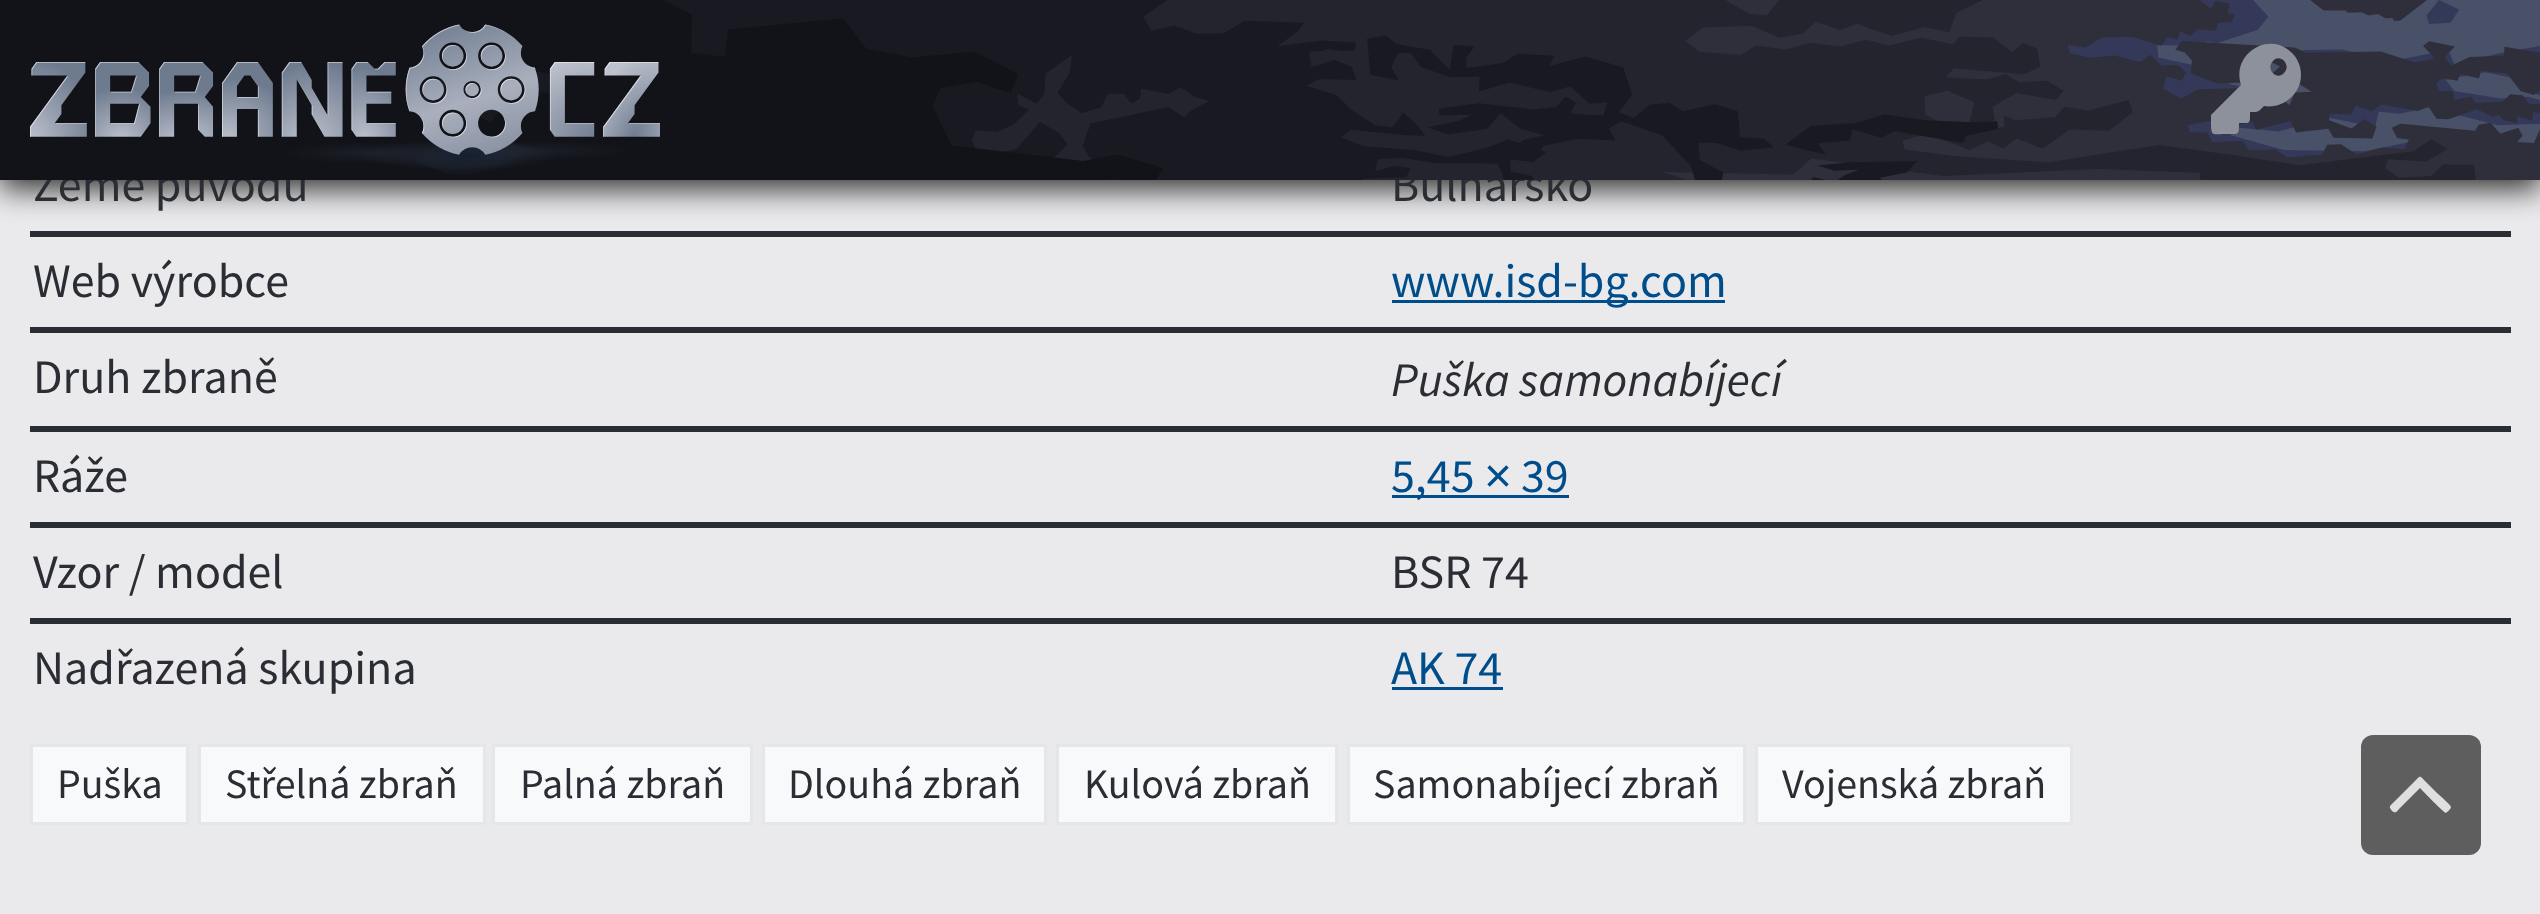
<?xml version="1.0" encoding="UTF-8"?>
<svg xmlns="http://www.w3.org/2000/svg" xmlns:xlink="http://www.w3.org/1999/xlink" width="2540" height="914">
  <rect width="100%" height="100%" fill="#eaeaec" />
  <rect x="30" y="231" width="2481" height="6" fill="#2b2d34" />
  <rect y="9" width="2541" height="180" fill="#000000" fill-opacity="0.8" filter="blur(15px)" />
  <rect x="30" y="327" width="2481" height="6" fill="#2b2d34" />
  <rect x="1392" y="300" width="333" height="3" fill="#004d8b" />
  <rect x="30" y="426" width="2481" height="6" fill="#2b2d34" />
  <rect x="30" y="522" width="2481" height="6" fill="#2b2d34" />
  <rect x="1392" y="495" width="177" height="3" fill="#004d8b" />
  <rect x="30" y="618" width="2481" height="6" fill="#2b2d34" />
  <rect x="1392" y="687" width="111" height="3" fill="#004d8b" />
  <rect x="31.5" y="745.5" width="156" height="78" fill="#f8f9fa" stroke="#e3e7ea" stroke-width="3" />
  <rect x="199.5" y="745.5" width="285" height="78" fill="#f8f9fa" stroke="#e3e7ea" stroke-width="3" />
  <rect x="493.5" y="745.5" width="258" height="78" fill="#f8f9fa" stroke="#e3e7ea" stroke-width="3" />
  <rect x="763.5" y="745.5" width="282" height="78" fill="#f8f9fa" stroke="#e3e7ea" stroke-width="3" />
  <rect x="1057.5" y="745.5" width="279" height="78" fill="#f8f9fa" stroke="#e3e7ea" stroke-width="3" />
  <rect x="1348.5" y="745.5" width="396" height="78" fill="#f8f9fa" stroke="#e3e7ea" stroke-width="3" />
  <rect x="1756.5" y="745.5" width="315" height="78" fill="#f8f9fa" stroke="#e3e7ea" stroke-width="3" />
  <rect x="2361" y="735" width="120" height="120" rx="12" fill="#5e5e5e" />
  <path d="M 2451 807 c 0 2 -4 5 -5 6 c -2 0 -23 -22 -26 -25 l -20 20 c -3 3 -4 6 -8 3 l -2 -3 c -1 -2 3 -5 5 -7 l 19 -19 c 7 -7 5 -7 12 0 l 10 10 c 2 2 15 13 15 15 z" fill="#dfdfdf" />
  <text x="33" y="201" style="font-family: Source Sans Pro; font-size: 48px; fill: #2b2d34">Země původu</text>
  <rect width="417" height="180" fill="#121319" />
  <text x="1391" y="201" style="font-family: Source Sans Pro; font-size: 48px; fill: #2b2d34">Bulharsko</text>
  <image x="417" y="0" width="2123" height="180" xlink:href="image1.png" />
  <path d="M 2301 75 c 0 19 -18 34 -37 31 c -6 6 -5 6 -14 6 c 0 12 1 11 -11 11 c 0 13 0 11 -14 11 c -11 0 -14 3 -14 -9 v -10 l 30 -30 c -10 -31 28 -55 51 -32 c 6 6 9 14 9 22 z m -28 -14 c -8 8 4 20 11 12 c 8 -8 -4 -20 -11 -12 z" fill="#8d919c" />
  <image x="30" y="24" width="630" height="151" xlink:href="image2.png" />
  <text x="33" y="297" style="font-family: Source Sans Pro; font-size: 48px; fill: #2b2d34">Web výrobce</text>
  <text x="1391" y="297" style="font-family: Source Sans Pro; font-size: 48px; fill: #004d8b">www.isd-bg.com</text>
  <text x="33" y="393" style="font-family: Source Sans Pro; font-size: 48px; fill: #2b2d34">Druh zbraně</text>
  <text x="1391" y="396" style="font-family: Source Sans Pro; font-size: 48px; font-style: italic; fill: #2b2d34">Puška samonabíjecí</text>
  <text x="33" y="492" style="font-family: Source Sans Pro; font-size: 48px; fill: #2b2d34">Ráže</text>
  <text x="1391" y="492" style="font-family: Source Sans Pro; font-size: 48px; fill: #004d8b">5,45</text>
  <text x="1484" y="492" style="font-family: Liberation Sans; font-size: 48px; fill: #004d8b">×</text>
  <text x="1521" y="492" style="font-family: Source Sans Pro; font-size: 48px; fill: #004d8b">39</text>
  <text x="33" y="588" style="font-family: Source Sans Pro; font-size: 48px; fill: #2b2d34">Vzor / model</text>
  <text x="1391" y="588" style="font-family: Source Sans Pro; font-size: 48px; fill: #2b2d34">BSR 74</text>
  <text x="33" y="684" style="font-family: Source Sans Pro; font-size: 48px; fill: #2b2d34">Nadřazená skupina</text>
  <text x="1391" y="684" style="font-family: Source Sans Pro; font-size: 48px; fill: #004d8b">AK 74</text>
  <text x="57" y="798" style="font-family: Source Sans Pro; font-size: 42px; fill: #2b2d34">Puška</text>
  <text x="225" y="798" style="font-family: Source Sans Pro; font-size: 42px; fill: #2b2d34">Střelná zbraň</text>
  <text x="520" y="798" style="font-family: Source Sans Pro; font-size: 42px; fill: #2b2d34">Palná zbraň</text>
  <text x="788" y="798" style="font-family: Source Sans Pro; font-size: 42px; fill: #2b2d34">Dlouhá zbraň</text>
  <text x="1084" y="798" style="font-family: Source Sans Pro; font-size: 42px; fill: #2b2d34">Kulová zbraň</text>
  <text x="1373" y="798" style="font-family: Source Sans Pro; font-size: 42px; fill: #2b2d34">Samonabíjecí zbraň</text>
  <text x="1782" y="798" style="font-family: Source Sans Pro; font-size: 42px; fill: #2b2d34">Vojenská zbraň</text>
</svg>
